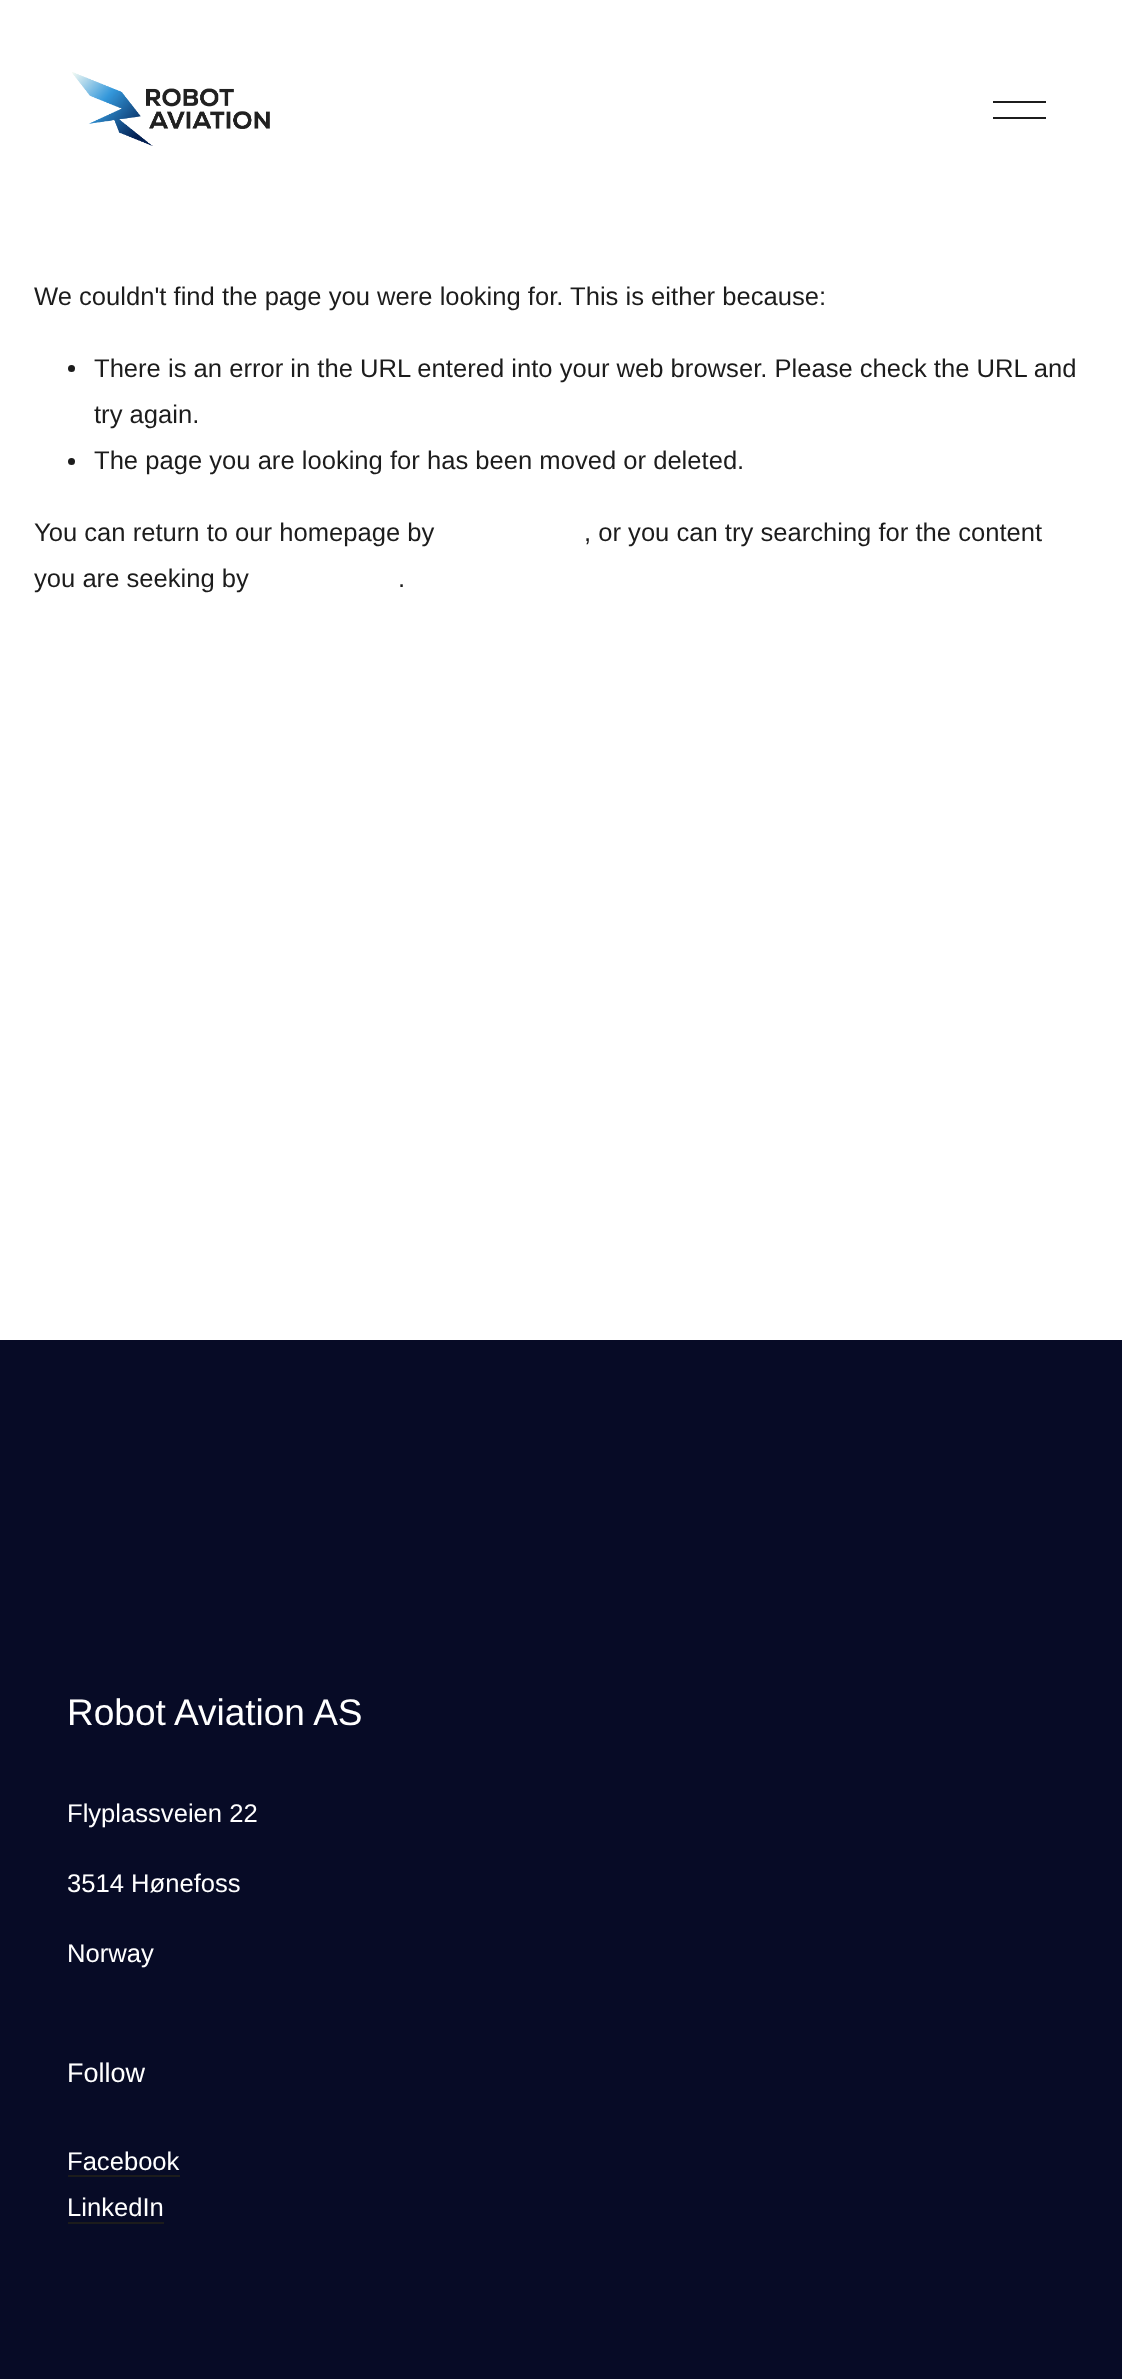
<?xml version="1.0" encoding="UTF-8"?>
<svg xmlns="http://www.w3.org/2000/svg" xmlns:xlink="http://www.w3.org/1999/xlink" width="1122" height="2379">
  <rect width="100%" height="100%" fill="#ffffff" />
  <image x="72" y="72" width="198" height="74" xlink:href="image1.png" />
  <rect x="993" y="101" width="53" height="2" fill="#1c1c1c" />
  <rect x="993" y="117" width="53" height="2" fill="#1c1c1c" />
  <circle cx="71.5" cy="368.5" r="3.5" fill="#1c1c1c" />
  <circle cx="71.5" cy="461.5" r="3.5" fill="#1c1c1c" />
  <rect y="1340" width="1122" height="1039" fill="#070b26" />
  <rect x="68" y="2175" width="112" height="2" fill="#1c1c1c" />
  <rect x="68" y="2222" width="96" height="2" fill="#1c1c1c" />
  <text x="34" y="305" style="font-family: Liberation Sans; font-size: 25.6px; fill: #1c1c1c">We couldn't find the page you were looking for. This is either because:</text>
  <text x="94" y="377" style="font-family: Liberation Sans; font-size: 25.6px; fill: #1c1c1c">There is an error in the URL entered into your web browser. Please check the URL and</text>
  <text x="94" y="423" style="font-family: Liberation Sans; font-size: 25.6px; fill: #1c1c1c">try again.</text>
  <text x="94" y="469" style="font-family: Liberation Sans; font-size: 25.6px; fill: #1c1c1c">The page you are looking for has been moved or deleted.</text>
  <text x="34" y="541" style="font-family: Liberation Sans; font-size: 25.6px; fill: #1c1c1c">You can return to our homepage by</text>
  <text x="584" y="541" style="font-family: Liberation Sans; font-size: 25.6px; fill: #1c1c1c">, or you can try searching for the content</text>
  <text x="34" y="587" style="font-family: Liberation Sans; font-size: 25.6px; fill: #1c1c1c">you are seeking by</text>
  <text x="398" y="587" style="font-family: Liberation Sans; font-size: 25.6px; fill: #1c1c1c">.</text>
  <text x="67" y="1725" style="font-family: Liberation Sans; font-size: 37px; fill: #ffffff">Robot Aviation AS</text>
  <text x="67" y="1822" style="font-family: Liberation Sans; font-size: 25.6px; fill: #ffffff">Flyplassveien 22</text>
  <text x="67" y="1892" style="font-family: Liberation Sans; font-size: 25.6px; fill: #ffffff">3514 Hønefoss</text>
  <text x="67" y="1962" style="font-family: Liberation Sans; font-size: 25.6px; fill: #ffffff">Norway</text>
  <text x="67" y="2082" style="font-family: Liberation Sans; font-size: 27px; fill: #ffffff">Follow</text>
  <text x="67" y="2170" style="font-family: Liberation Sans; font-size: 25.6px; fill: #ffffff">Facebook</text>
  <text x="67" y="2216" style="font-family: Liberation Sans; font-size: 25.6px; fill: #ffffff">LinkedIn</text>
</svg>
